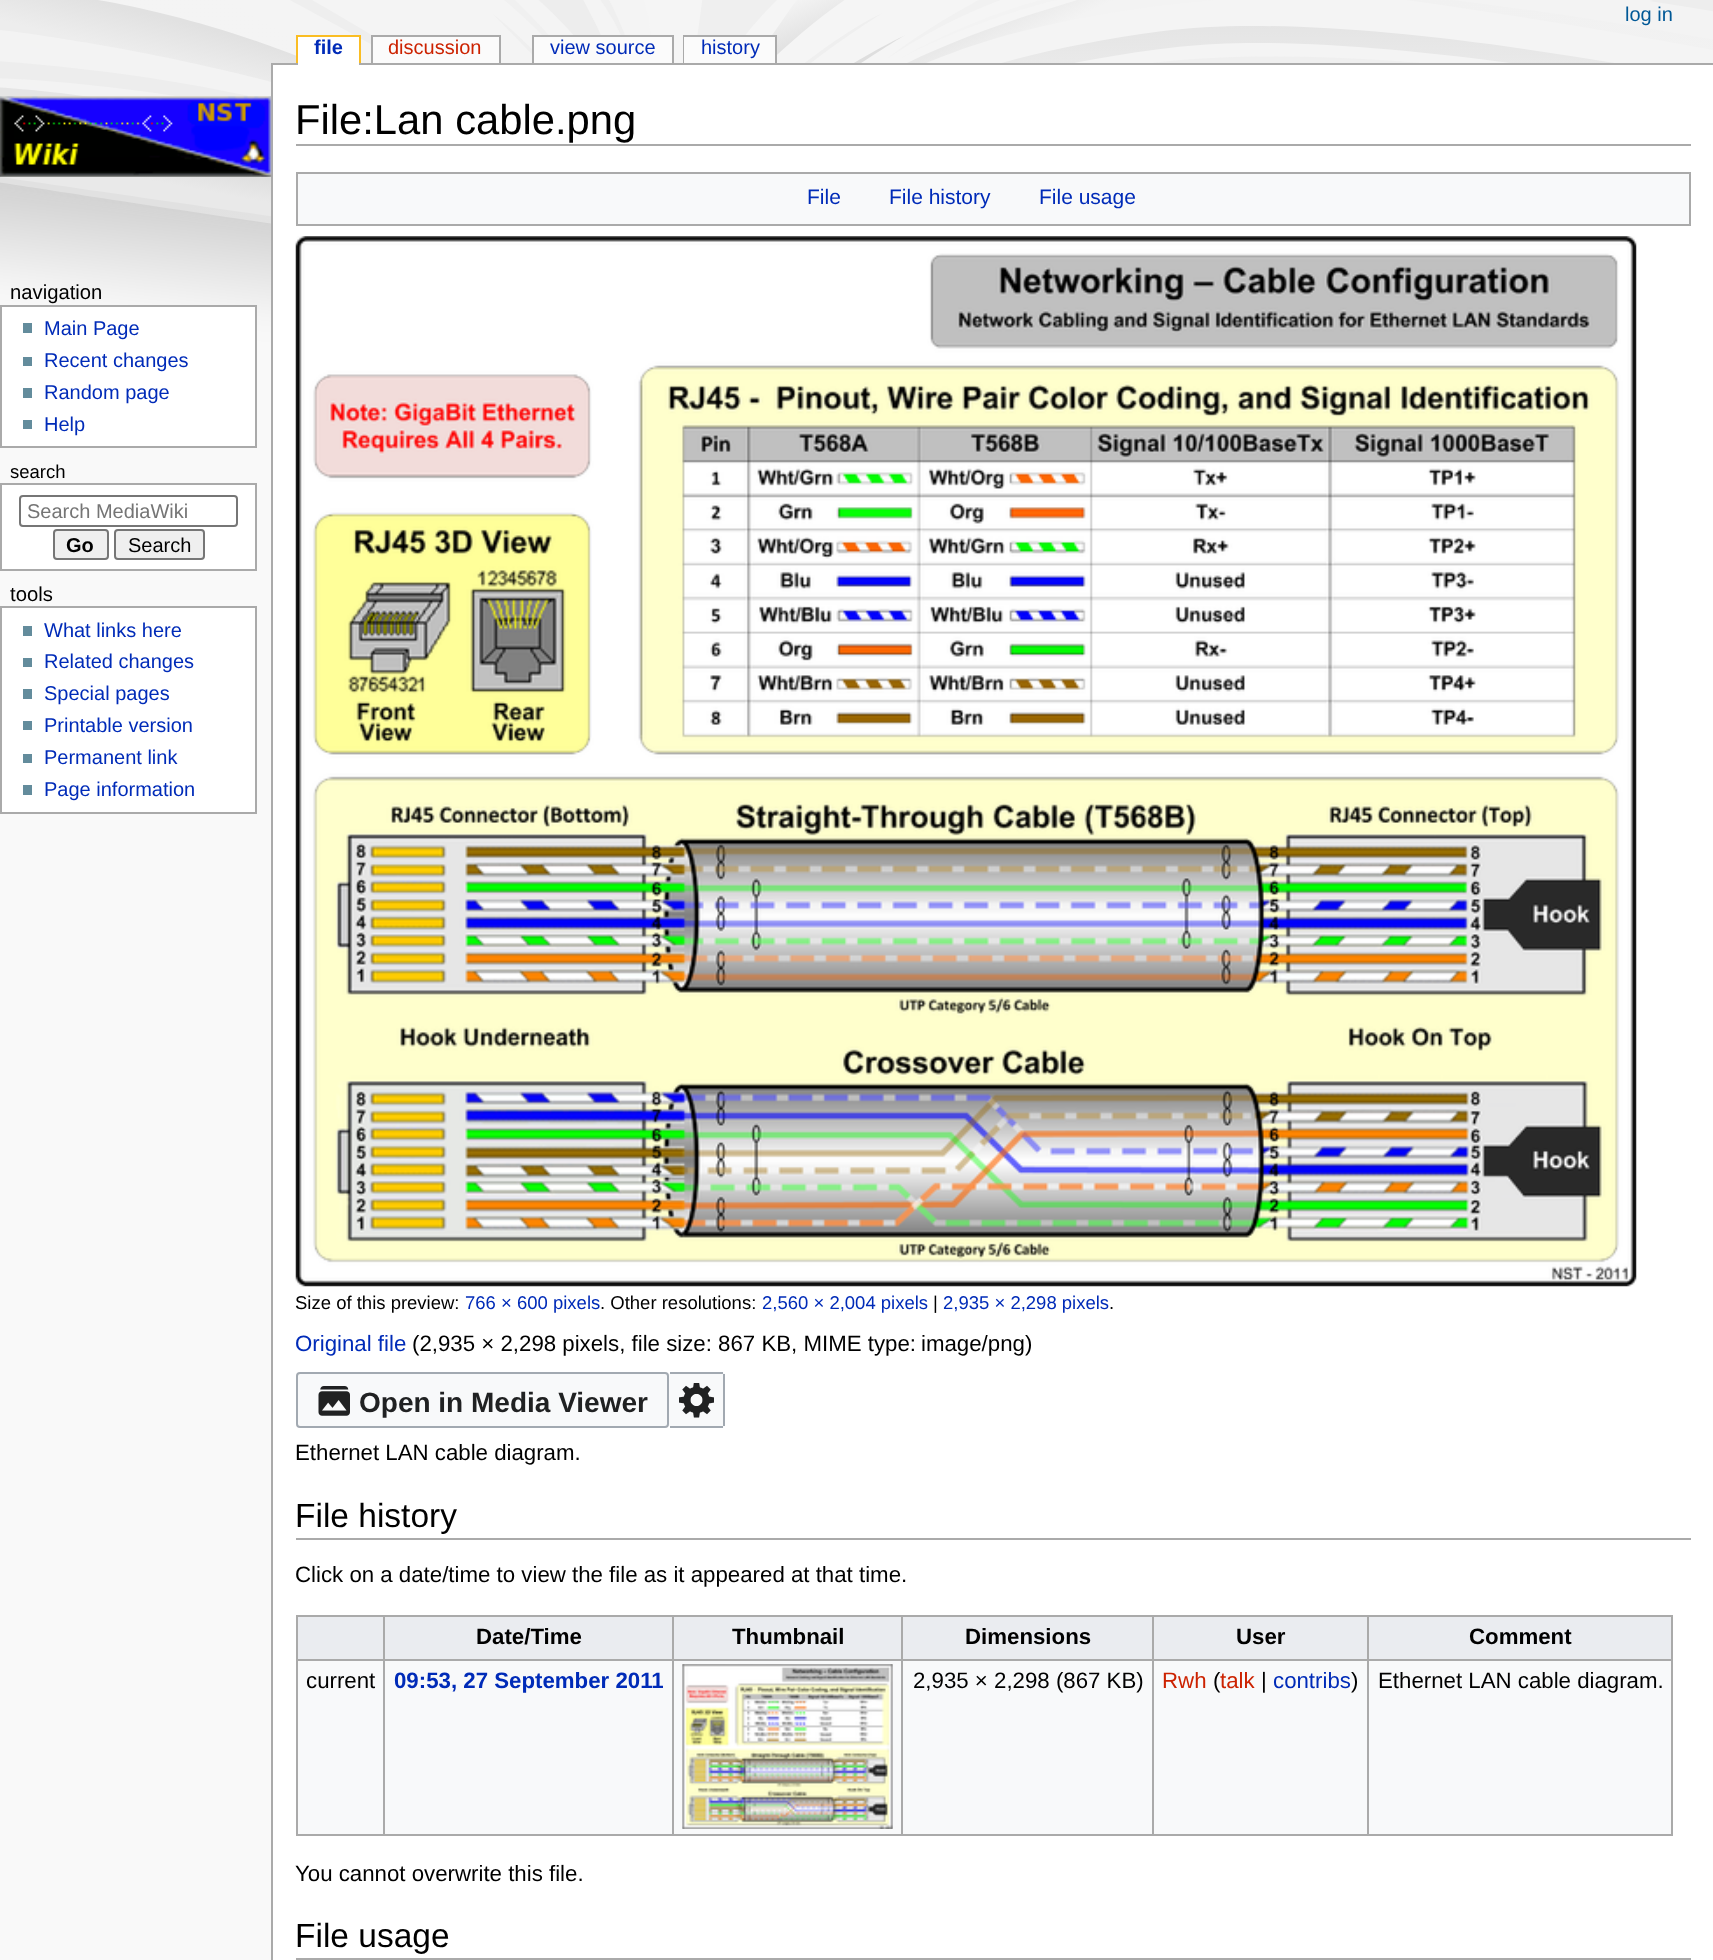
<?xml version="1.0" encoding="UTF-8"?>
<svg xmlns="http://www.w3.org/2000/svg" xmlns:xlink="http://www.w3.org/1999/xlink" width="1713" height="1960">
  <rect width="100%" height="100%" fill="#f9f9f9" />
  <image x="0" y="0" width="1713" height="367" xlink:href="image1.png" />
  <rect x="296" y="35" width="65" height="2" fill="#fabd23" />
  <rect x="359" y="35" width="2" height="28" fill="#fabd23" />
  <rect x="296" y="35" width="2" height="28" fill="#fabd23" />
  <rect x="271" y="63" width="1442" height="2" fill="#aaaaaa" />
  <rect x="298" y="37" width="61" height="28" fill="#ffffff" />
  <rect x="371" y="35" width="130" height="2" fill="#aaaaaa" />
  <rect x="499" y="35" width="2" height="28" fill="#aaaaaa" />
  <rect x="371" y="35" width="2" height="28" fill="#aaaaaa" />
  <rect x="373" y="37" width="126" height="26" fill="#fbfbfb" />
  <rect x="532" y="35" width="142" height="2" fill="#aaaaaa" />
  <rect x="672" y="35" width="2" height="28" fill="#aaaaaa" />
  <rect x="532" y="35" width="2" height="28" fill="#aaaaaa" />
  <rect x="534" y="37" width="138" height="26" fill="#fbfbfb" />
  <rect x="683" y="35" width="94" height="2" fill="#aaaaaa" />
  <rect x="775" y="35" width="2" height="28" fill="#aaaaaa" />
  <rect x="683" y="35" width="2" height="28" fill="#aaaaaa" />
  <rect x="684" y="37" width="91" height="26" fill="#fbfbfb" />
  <rect x="271" y="63" width="2" height="1897" fill="#aaaaaa" />
  <image x="0" y="96" width="272" height="81" xlink:href="image2.png" />
  <rect x="1" y="306" width="255" height="141" fill="#ffffff" stroke="#aaaaaa" stroke-width="2" />
  <rect x="23" y="323" width="9" height="10" fill="#638c9c" />
  <rect x="23" y="357" width="9" height="9" fill="#638c9c" />
  <rect x="23" y="388" width="9" height="10" fill="#638c9c" />
  <rect x="23" y="420" width="9" height="9" fill="#638c9c" />
  <rect x="1" y="484" width="255" height="86" fill="#ffffff" stroke="#aaaaaa" stroke-width="2" />
  <rect x="20" y="496" width="217" height="30" rx="3" fill="none" stroke="#767676" stroke-width="2" />
  <rect x="54" y="530" width="54" height="29" rx="3" fill="#efefef" stroke="#767676" stroke-width="2" />
  <rect x="115" y="530" width="89" height="29" rx="3" fill="#efefef" stroke="#767676" stroke-width="2" />
  <rect x="1" y="607" width="255" height="206" fill="#ffffff" stroke="#aaaaaa" stroke-width="2" />
  <rect x="23" y="626" width="9" height="10" fill="#638c9c" />
  <rect x="23" y="658" width="9" height="9" fill="#638c9c" />
  <rect x="23" y="689" width="9" height="10" fill="#638c9c" />
  <rect x="23" y="721" width="9" height="9" fill="#638c9c" />
  <rect x="23" y="754" width="9" height="9" fill="#638c9c" />
  <rect x="23" y="785" width="9" height="10" fill="#638c9c" />
  <rect x="273" y="65" width="1440" height="1895" fill="#ffffff" />
  <rect x="296" y="144" width="1395" height="2" fill="#aaaaaa" />
  <rect x="297" y="173" width="1393" height="52" fill="#f8f9fa" stroke="#aaaaaa" stroke-width="2" />
  <image x="295" y="236" width="1342" height="1051" xlink:href="image3.png" />
  <rect x="297" y="1373" width="371" height="54" rx="3" fill="#f8f9fa" stroke="#a2a9b1" stroke-width="2" />
  <image x="318" y="1386" width="32" height="30" xlink:href="image4.png" />
  <rect x="669" y="1372" width="56" height="56" rx="4" fill="#f8f9fa" />
  <rect x="670" y="1372" width="53" height="2" fill="#a2a9b1" />
  <rect x="723" y="1374" width="2" height="52" fill="#a2a9b1" />
  <rect x="670" y="1426" width="53" height="2" fill="#a2a9b1" />
  <image x="679" y="1383" width="35" height="35" xlink:href="image5.png" />
  <rect x="296" y="1538" width="1395" height="2" fill="#aaaaaa" />
  <rect x="298" y="1661" width="1373" height="173" fill="#f8f9fa" />
  <rect x="296" y="1615" width="1377" height="2" fill="#aaaaaa" />
  <rect x="1671" y="1615" width="2" height="221" fill="#aaaaaa" />
  <rect x="296" y="1834" width="1377" height="2" fill="#aaaaaa" />
  <rect x="296" y="1615" width="2" height="221" fill="#aaaaaa" />
  <rect x="298" y="1617" width="85" height="42" fill="#eaecf0" />
  <rect x="385" y="1617" width="287" height="42" fill="#eaecf0" />
  <rect x="1367" y="1659" width="306" height="2" fill="#aaaaaa" />
  <rect x="1367" y="1659" width="2" height="177" fill="#aaaaaa" />
  <rect x="1152" y="1659" width="217" height="2" fill="#aaaaaa" />
  <rect x="1152" y="1659" width="2" height="177" fill="#aaaaaa" />
  <rect x="901" y="1659" width="252" height="2" fill="#aaaaaa" />
  <rect x="901" y="1659" width="2" height="177" fill="#aaaaaa" />
  <rect x="672" y="1659" width="231" height="2" fill="#aaaaaa" />
  <rect x="672" y="1659" width="2" height="177" fill="#aaaaaa" />
  <rect x="383" y="1659" width="291" height="2" fill="#aaaaaa" />
  <rect x="383" y="1659" width="2" height="177" fill="#aaaaaa" />
  <rect x="296" y="1659" width="89" height="2" fill="#aaaaaa" />
  <rect x="383" y="1615" width="2" height="46" fill="#aaaaaa" />
  <rect x="674" y="1617" width="227" height="42" fill="#eaecf0" />
  <rect x="672" y="1615" width="2" height="46" fill="#aaaaaa" />
  <rect x="903" y="1617" width="249" height="42" fill="#eaecf0" />
  <rect x="901" y="1615" width="2" height="46" fill="#aaaaaa" />
  <rect x="1154" y="1617" width="213" height="42" fill="#eaecf0" />
  <rect x="1152" y="1615" width="2" height="46" fill="#aaaaaa" />
  <rect x="1369" y="1617" width="302" height="42" fill="#eaecf0" />
  <rect x="1367" y="1615" width="2" height="46" fill="#aaaaaa" />
  <image x="682" y="1664" width="211" height="165" xlink:href="image6.png" />
  <image x="682" y="1664" width="211" height="165" xlink:href="image7.png" />
  <rect x="296" y="1958" width="1395" height="2" fill="#aaaaaa" />
  <text x="1625" y="21" style="font-family: Liberation Sans; font-size: 20px; fill: #005896">log in</text>
  <text x="314" y="54" style="font-family: Liberation Sans; font-size: 20px; font-weight: bold; fill: #002bb8">file</text>
  <text x="388" y="54" style="font-family: Liberation Sans; font-size: 20px; fill: #cc2200">discussion</text>
  <text x="550" y="54" style="font-family: Liberation Sans; font-size: 20px; fill: #002bb8">view source</text>
  <text x="701" y="54" style="font-family: Liberation Sans; font-size: 20px; fill: #002bb8">history</text>
  <text x="10" y="299" style="font-family: Liberation Sans; font-size: 20.25px; fill: #000000">navigation</text>
  <text x="44" y="335" style="font-family: Liberation Sans; font-size: 20px; fill: #002bb8">Main Page</text>
  <text x="44" y="367" style="font-family: Liberation Sans; font-size: 20px; fill: #002bb8">Recent changes</text>
  <text x="44" y="399" style="font-family: Liberation Sans; font-size: 20px; fill: #002bb8">Random page</text>
  <text x="44" y="431" style="font-family: Liberation Sans; font-size: 20px; fill: #002bb8">Help</text>
  <text x="10" y="478" style="font-family: Liberation Sans; font-size: 18.5px; fill: #000000">search</text>
  <text x="27" y="518" style="font-family: Liberation Sans; font-size: 20px; fill: #757575">Search MediaWiki</text>
  <text x="66" y="552" style="font-family: Liberation Sans; font-size: 20px; font-weight: bold; fill: #000000">Go</text>
  <text x="128" y="552" style="font-family: Liberation Sans; font-size: 20px; fill: #000000">Search</text>
  <text x="10" y="601" style="font-family: Liberation Sans; font-size: 20.25px; fill: #000000">tools</text>
  <text x="44" y="637" style="font-family: Liberation Sans; font-size: 20px; fill: #002bb8">What links here</text>
  <text x="44" y="668" style="font-family: Liberation Sans; font-size: 20px; fill: #002bb8">Related changes</text>
  <text x="44" y="700" style="font-family: Liberation Sans; font-size: 20px; fill: #002bb8">Special pages</text>
  <text x="44" y="732" style="font-family: Liberation Sans; font-size: 20px; fill: #002bb8">Printable version</text>
  <text x="44" y="764" style="font-family: Liberation Sans; font-size: 20px; fill: #002bb8">Permanent link</text>
  <text x="44" y="796" style="font-family: Liberation Sans; font-size: 20px; fill: #002bb8">Page information</text>
  <text x="295" y="134" style="font-family: Liberation Sans; font-size: 41.75px; fill: #000000">File:Lan cable.png</text>
  <text x="807" y="204" style="font-family: Liberation Sans; font-size: 21px; fill: #002bb8">File</text>
  <text x="889" y="204" style="font-family: Liberation Sans; font-size: 21px; fill: #002bb8">File history</text>
  <text x="1039" y="204" style="font-family: Liberation Sans; font-size: 21px; fill: #002bb8">File usage</text>
  <text x="295" y="1309" style="font-family: Liberation Sans; font-size: 18.5px; fill: #000000">Size of this preview:</text>
  <text x="465" y="1309" style="font-family: Liberation Sans; font-size: 18.5px; fill: #002bb8">766 × 600 pixels</text>
  <text x="600" y="1309" style="font-family: Liberation Sans; font-size: 18.5px; fill: #000000">. Other resolutions:</text>
  <text x="762" y="1309" style="font-family: Liberation Sans; font-size: 18.5px; fill: #002bb8">2,560 × 2,004 pixels</text>
  <text x="933" y="1309" style="font-family: Liberation Sans; font-size: 18.5px; fill: #000000">|</text>
  <text x="943" y="1309" style="font-family: Liberation Sans; font-size: 18.5px; fill: #002bb8">2,935 × 2,298 pixels</text>
  <text x="1109" y="1309" style="font-family: Liberation Sans; font-size: 18.5px; fill: #000000">.</text>
  <text x="295" y="1351" style="font-family: Liberation Sans; font-size: 22.25px; fill: #002bb8">Original file</text>
  <text x="412" y="1351" style="font-family: Liberation Sans; font-size: 22.25px; fill: #000000">(2,935 × 2,298 pixels, file size: 867 KB, MIME type:</text>
  <text x="921" y="1351" style="font-family: Liberation Sans; font-size: 22.25px; fill: #000000">image/png)</text>
  <text x="359" y="1412" style="font-family: Liberation Sans; font-size: 28px; font-weight: bold; fill: #202122">Open in Media Viewer</text>
  <text x="295" y="1460" style="font-family: Liberation Sans; font-size: 22.25px; fill: #000000">Ethernet LAN cable diagram.</text>
  <text x="295" y="1527" style="font-family: Liberation Sans; font-size: 33.5px; fill: #000000">File history</text>
  <text x="295" y="1582" style="font-family: Liberation Sans; font-size: 22.25px; fill: #000000">Click on a date/time to view the file as it appeared at that time.</text>
  <text x="476" y="1644" style="font-family: Liberation Sans; font-size: 22.25px; font-weight: bold; fill: #000000">Date/Time</text>
  <text x="732" y="1644" style="font-family: Liberation Sans; font-size: 22.25px; font-weight: bold; fill: #000000">Thumbnail</text>
  <text x="965" y="1644" style="font-family: Liberation Sans; font-size: 22.25px; font-weight: bold; fill: #000000">Dimensions</text>
  <text x="1236" y="1644" style="font-family: Liberation Sans; font-size: 22.25px; font-weight: bold; fill: #000000">User</text>
  <text x="1469" y="1644" style="font-family: Liberation Sans; font-size: 22.25px; font-weight: bold; fill: #000000">Comment</text>
  <text x="306" y="1688" style="font-family: Liberation Sans; font-size: 22.25px; fill: #000000">current</text>
  <text x="394" y="1688" style="font-family: Liberation Sans; font-size: 22.25px; font-weight: bold; fill: #002bb8">09:53, 27 September 2011</text>
  <text x="913" y="1688" style="font-family: Liberation Sans; font-size: 22.25px; fill: #000000">2,935 × 2,298 (867 KB)</text>
  <text x="1162" y="1688" style="font-family: Liberation Sans; font-size: 22.25px; fill: #cc2200">Rwh</text>
  <text x="1213" y="1688" style="font-family: Liberation Sans; font-size: 22.25px; fill: #000000">(</text>
  <text x="1220" y="1688" style="font-family: Liberation Sans; font-size: 22.25px; fill: #cc2200">talk</text>
  <text x="1261" y="1688" style="font-family: Liberation Sans; font-size: 22.25px; fill: #000000">|</text>
  <text x="1273" y="1688" style="font-family: Liberation Sans; font-size: 22.25px; fill: #002bb8">contribs</text>
  <text x="1351" y="1688" style="font-family: Liberation Sans; font-size: 22.25px; fill: #000000">)</text>
  <text x="1378" y="1688" style="font-family: Liberation Sans; font-size: 22.25px; fill: #000000">Ethernet LAN cable diagram.</text>
  <text x="295" y="1881" style="font-family: Liberation Sans; font-size: 22.25px; fill: #000000">You cannot overwrite this file.</text>
  <text x="295" y="1947" style="font-family: Liberation Sans; font-size: 33.5px; fill: #000000">File usage</text>
</svg>
